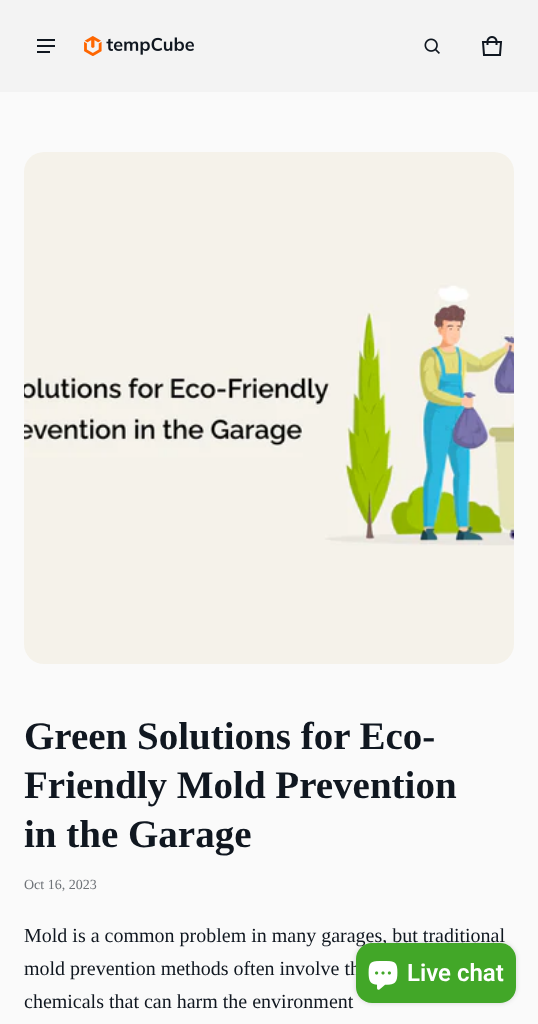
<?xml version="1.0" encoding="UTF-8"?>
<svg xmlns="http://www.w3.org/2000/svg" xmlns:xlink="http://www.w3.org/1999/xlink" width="538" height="1024">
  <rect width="100%" height="100%" fill="#fafafa" />
  <rect width="538" height="92" fill="#f3f3f3" />
  <rect x="37" y="39" width="18" height="2" fill="#101720" />
  <rect x="37" y="45" width="18" height="2" fill="#101720" />
  <rect x="37" y="51" width="13" height="2" fill="#101720" />
  <image x="84" y="36" width="110" height="20" xlink:href="image1.png" />
  <image x="424" y="38" width="16" height="16" xlink:href="image2.png" />
  <image x="481" y="36" width="22" height="20" xlink:href="image3.png" />
  <image x="24" y="152" width="490" height="512" xlink:href="image4.png" />
  <rect x="356" y="943" width="160" height="60" rx="16" fill="#000000" fill-opacity="0.15" filter="blur(2.5px)" />
  <text x="24" y="749" style="font-family: Liberation Serif; font-size: 39px; font-weight: bold; fill: #101720">Green Solutions for Eco-</text>
  <text x="24" y="798" style="font-family: Liberation Serif; font-size: 39px; font-weight: bold; fill: #101720">Friendly Mold Prevention</text>
  <text x="24" y="847" style="font-family: Liberation Serif; font-size: 39px; font-weight: bold; fill: #101720">in the Garage</text>
  <text x="24" y="889" style="font-family: Liberation Serif; font-size: 14px; fill: #6e7277">Oct 16, 2023</text>
  <text x="24" y="942" style="font-family: Liberation Serif; font-size: 20px; fill: #101720">Mold is a common problem in many garages, but traditional</text>
  <text x="24" y="975" style="font-family: Liberation Serif; font-size: 20px; fill: #101720">mold prevention methods often involve th</text>
  <text x="24" y="1008" style="font-family: Liberation Serif; font-size: 20px; fill: #101720">chemicals that can harm the environment</text>
  <rect x="356" y="943" width="160" height="60" rx="16" fill="#42a728" />
  <image x="368" y="961" width="30" height="29" xlink:href="image5.png" />
  <text x="407" y="981" style="font-family: Roboto; font-size: 24px; font-weight: 600; fill: #ffffff">Live chat</text>
</svg>
